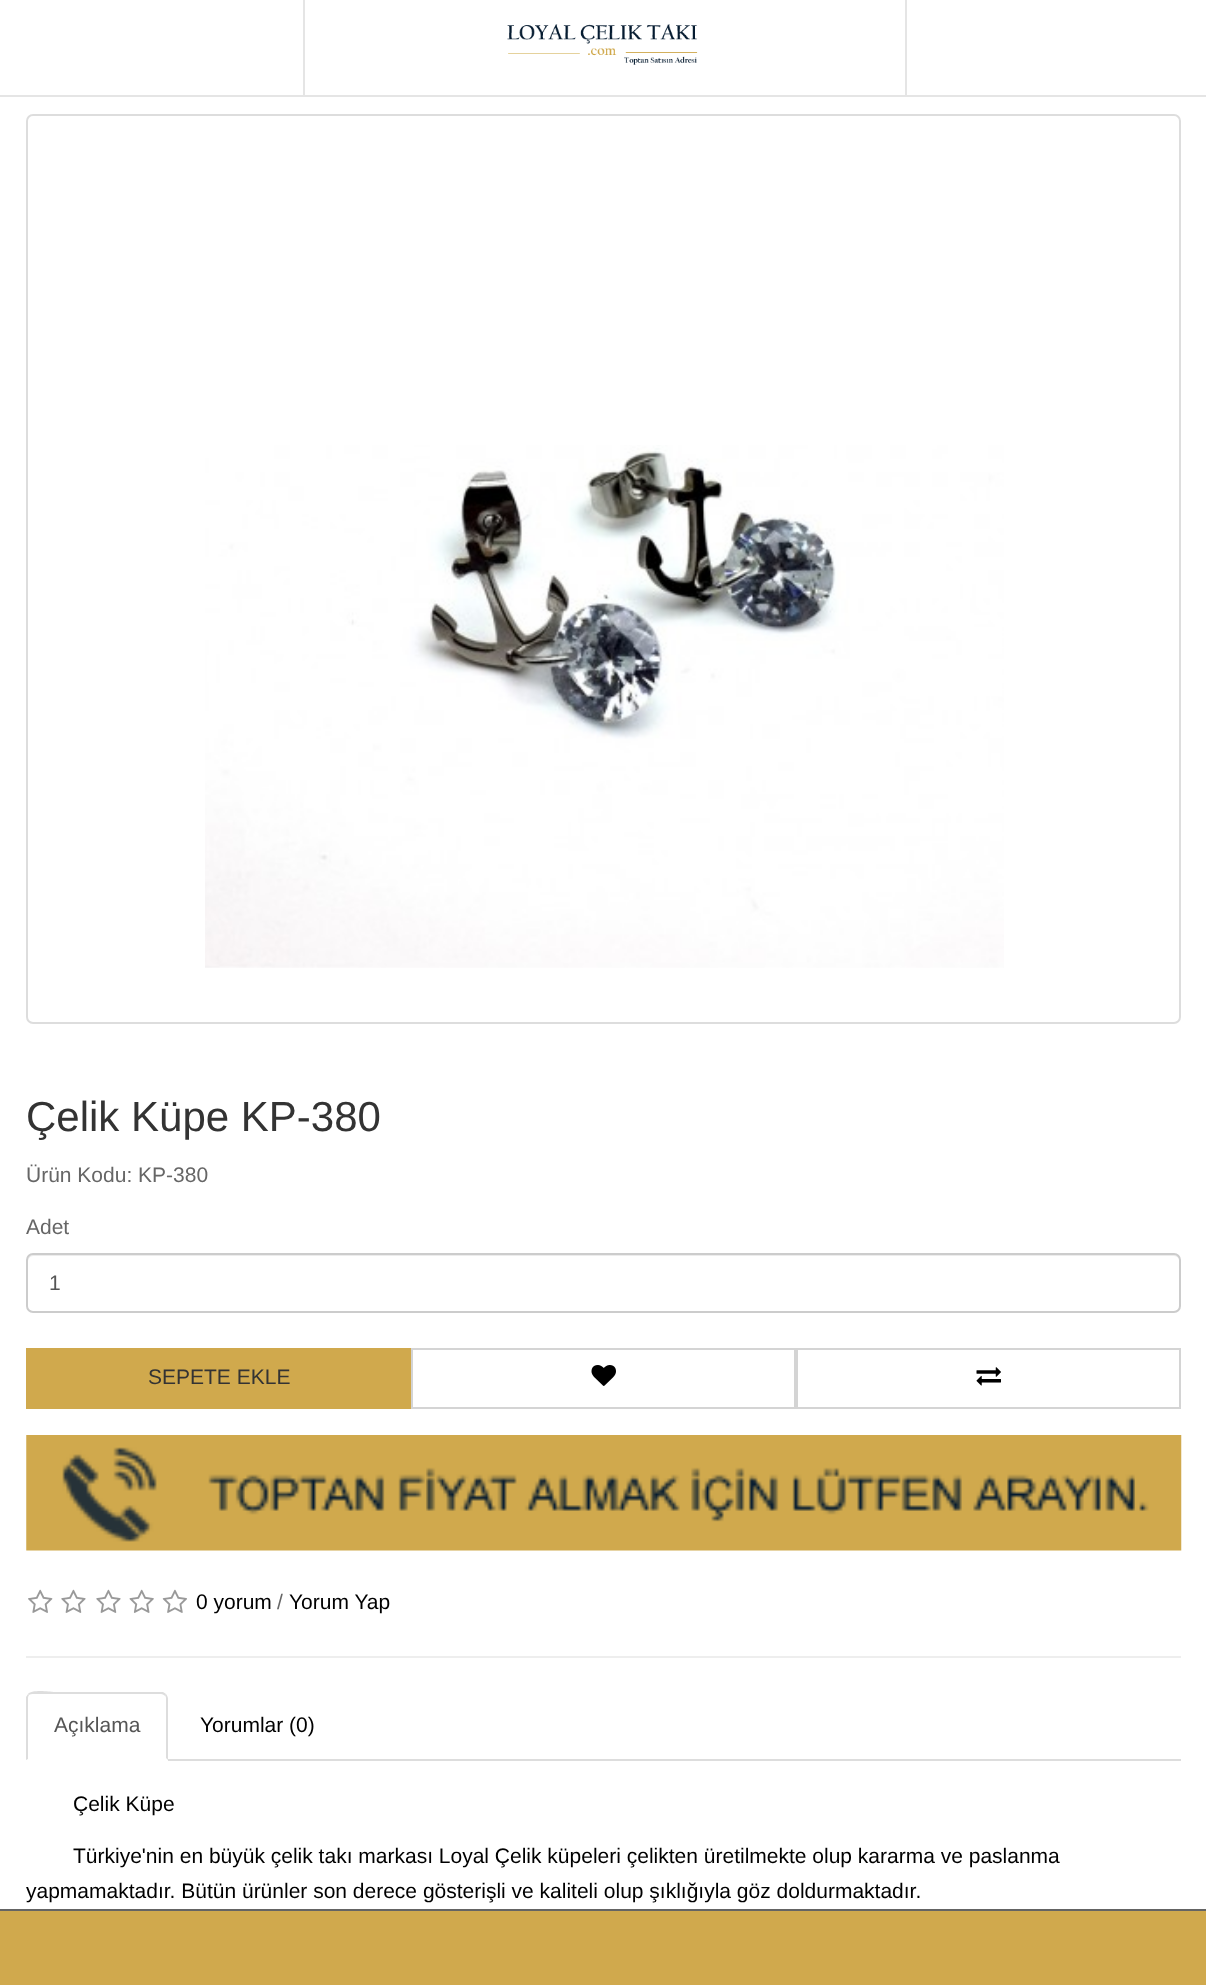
<?xml version="1.0" encoding="UTF-8"?>
<svg xmlns="http://www.w3.org/2000/svg" xmlns:xlink="http://www.w3.org/1999/xlink" width="1206" height="1985">
  <rect width="100%" height="100%" fill="#ffffff" />
  <rect y="95" width="1206" height="2" fill="#e5e5e5" />
  <rect x="905" width="2" height="96" fill="#e5e5e5" />
  <rect x="303" width="2" height="96" fill="#e5e5e5" />
  <image x="507" y="24" width="191" height="41" xlink:href="image1.png" />
  <rect x="27" y="115" width="1153" height="908" rx="6" fill="none" stroke="#dddddd" stroke-width="2" />
  <image x="205" y="445" width="799" height="523" xlink:href="image2.png" />
  <path d="M 33 1256 h 1141 c 3 0 6 3 6 6 v -2 c 0 -3 -2 -5 -5 -5 h -1142 c -3 0 -5 2 -5 5 v 2 c 0 -3 2 -6 5 -6 z" fill="#ececec" />
  <rect x="27" y="1254" width="1153" height="58" rx="6" fill="none" stroke="#cccccc" stroke-width="2" />
  <rect x="26" y="1348" width="385" height="61" fill="#d0a94d" />
  <rect x="412" y="1349" width="383" height="59" fill="none" stroke="#d4d4d4" stroke-width="2" />
  <image x="591" y="1365" width="25" height="21" xlink:href="image3.png" />
  <rect x="797" y="1349" width="383" height="59" fill="none" stroke="#d4d4d4" stroke-width="2" />
  <image x="976" y="1367" width="25" height="19" xlink:href="image4.png" />
  <image x="26" y="1435" width="1156" height="116" xlink:href="image5.png" />
  <image x="28" y="1589" width="25" height="24" xlink:href="image6.png" />
  <image x="61" y="1589" width="25" height="24" xlink:href="image7.png" />
  <image x="96" y="1589" width="25" height="24" xlink:href="image7.png" />
  <image x="129" y="1589" width="25" height="24" xlink:href="image8.png" />
  <image x="162" y="1589" width="25" height="24" xlink:href="image9.png" />
  <rect x="26" y="1656" width="1155" height="2" fill="#eeeeee" />
  <rect x="168" y="1759" width="1013" height="2" fill="#dddddd" />
  <path d="M 33 1694 c -1 0 -3 0 -4 1 l -1 -1 c 5 -5 23 -2 25 -2 h 110 l 3 2 l -1 2 c -1 -1 -2 -2 -4 -2 z" fill="#dddddd" />
  <path d="M 168 1760 v -61 c 0 -2 -1 -4 -2 -5 l -1 2 c 1 0 1 2 1 3 v 59 z" fill="#dddddd" />
  <path d="M 26 1697 l 2 -3 l 1 1 c -1 1 -1 3 -1 4 v 60 l -2 1 z" fill="#dddddd" />
  <rect y="1911" width="1206" height="74" fill="#d0a94d" />
  <rect y="1909" width="1206" height="2" fill="#646464" />
  <text x="26" y="1131" style="font-family: Liberation Sans; font-size: 42px; fill: #333333">Çelik Küpe KP-380</text>
  <text x="26" y="1182" style="font-family: Liberation Sans; font-size: 21px; fill: #666666">Ürün Kodu: KP-380</text>
  <text x="26" y="1234" style="font-family: Liberation Sans; font-size: 21px; fill: #666666">Adet</text>
  <text x="49" y="1290" style="font-family: Liberation Sans; font-size: 21px; fill: #555555">1</text>
  <text x="148" y="1384" style="font-family: Liberation Sans; font-size: 21px; fill: #333333">SEPETE EKLE</text>
  <text x="196" y="1609" style="font-family: Liberation Sans; font-size: 21px; fill: #000000">0 yorum</text>
  <text x="277" y="1609" style="font-family: Liberation Sans; font-size: 21px; fill: #666666">/</text>
  <text x="289" y="1609" style="font-family: Liberation Sans; font-size: 21px; fill: #000000">Yorum Yap</text>
  <text x="54" y="1732" style="font-family: Liberation Sans; font-size: 21px; fill: #555555">Açıklama</text>
  <text x="200" y="1732" style="font-family: Liberation Sans; font-size: 21px; fill: #000000">Yorumlar (0)</text>
  <text x="73" y="1811" style="font-family: Liberation Sans; font-size: 21px; fill: #000000">Çelik Küpe</text>
  <text x="73" y="1863" style="font-family: Liberation Sans; font-size: 21px; fill: #000000">Türkiye'nin en büyük çelik takı markası Loyal Çelik küpeleri çelikten üretilmekte olup kararma ve paslanma</text>
  <text x="26" y="1898" style="font-family: Liberation Sans; font-size: 21px; fill: #000000">yapmamaktadır. Bütün ürünler son derece gösterişli ve kaliteli olup şıklığıyla göz doldurmaktadır.</text>
</svg>
